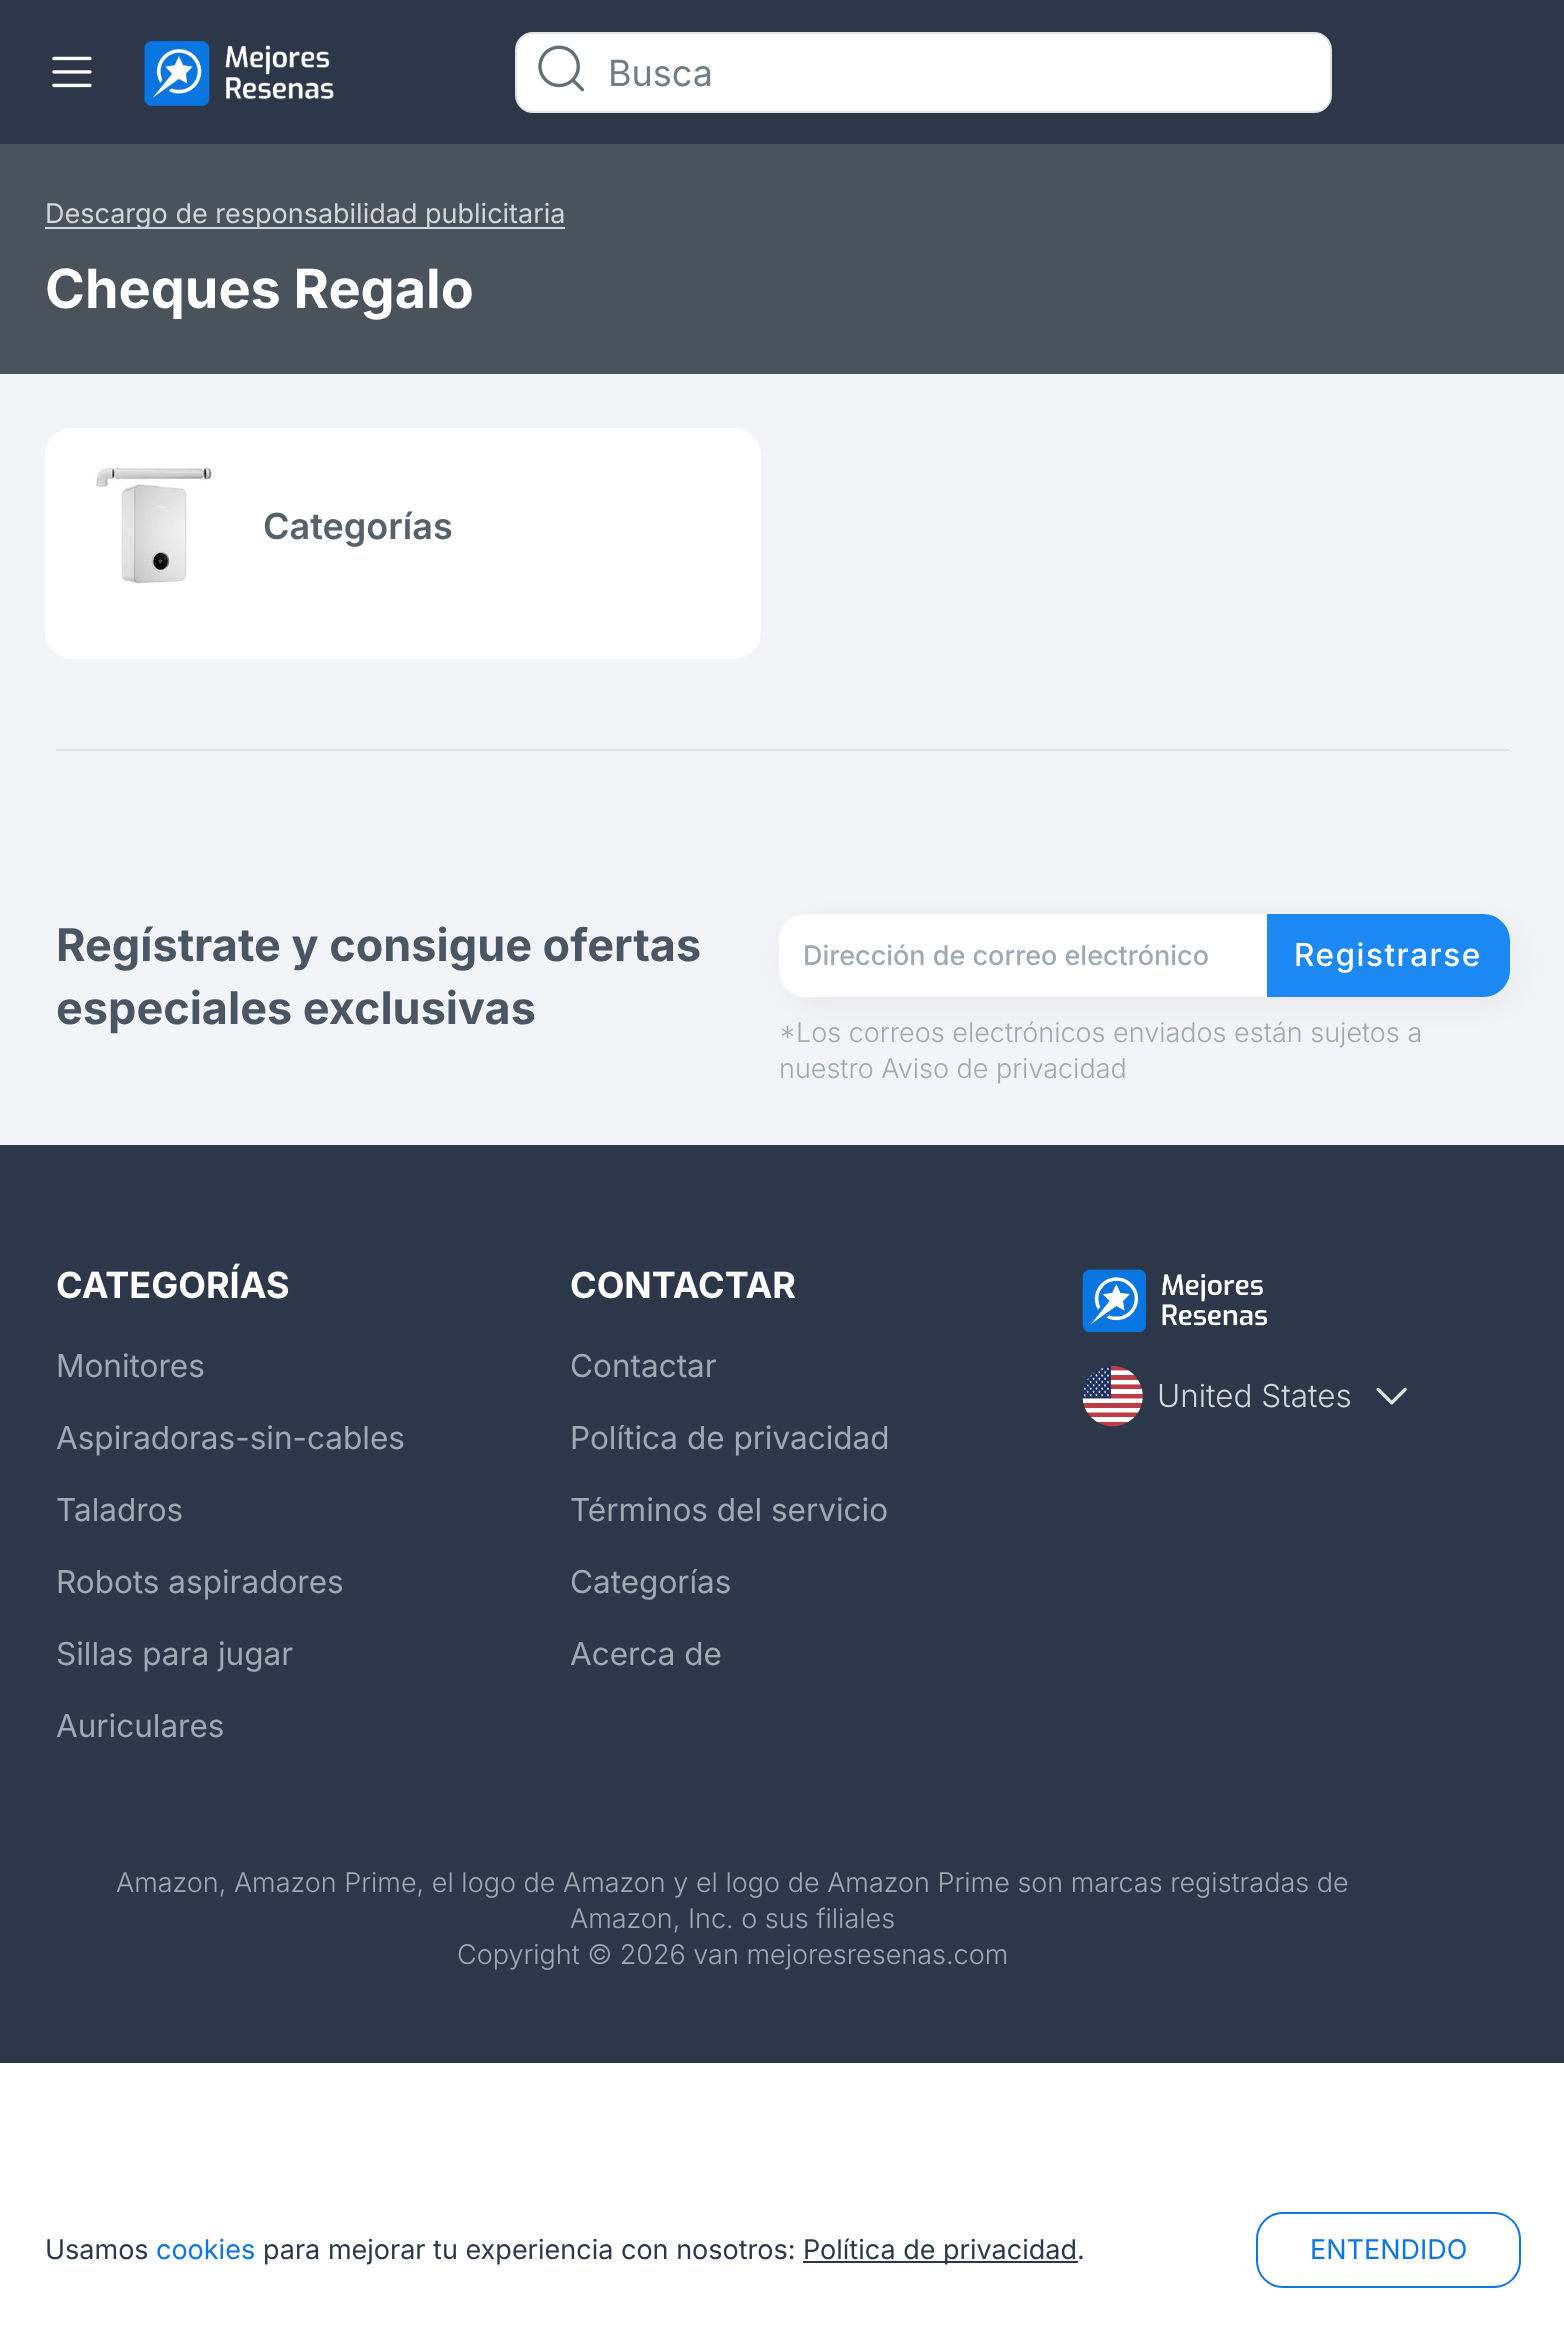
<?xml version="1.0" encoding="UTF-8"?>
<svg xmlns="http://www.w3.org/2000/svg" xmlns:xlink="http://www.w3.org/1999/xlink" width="1564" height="2332">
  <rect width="100%" height="100%" fill="#ffffff" />
  <rect width="1564" height="144" fill="#2c384a" />
  <image x="52" y="56" width="40" height="32" xlink:href="image1.png" />
  <image x="144" y="40" width="190" height="66" xlink:href="image2.png" />
  <rect x="516" y="33" width="815" height="79" rx="17" fill="#ffffff" stroke="#e1e4e6" stroke-width="2" />
  <image x="538" y="45" width="47" height="47" xlink:href="image3.png" />
  <rect y="374" width="1564" height="771" fill="#f2f4f7" />
  <rect y="144" width="1564" height="230" fill="#4a525b" />
  <rect x="45" y="227" width="520" height="2" fill="#d1d6da" />
  <rect x="45" y="428" width="716" height="231" rx="27" fill="#ffffff" />
  <image x="95" y="467" width="118" height="117" xlink:href="image4.png" />
  <rect x="56" y="749" width="1454" height="2" fill="#e1e4e6" />
  <rect x="792" y="927" width="722" height="74" rx="23" fill="#000000" fill-opacity="0.06" filter="blur(21.5px)" />
  <path d="M 806 914 h 461 v 83 h -461 c -15 0 -27 -12 -27 -27 v -29 c 0 -15 12 -27 27 -27 z" fill="#ffffff" />
  <path d="M 1267 914 h 216 c 15 0 27 12 27 27 v 29 c 0 15 -12 27 -27 27 h -216 z" fill="#1b88f4" />
  <rect y="1145" width="1564" height="918" fill="#2c384a" />
  <image x="1082" y="1269" width="185" height="63" xlink:href="image5.png" />
  <image x="1082" y="1365" width="61" height="62" xlink:href="image6.png" />
  <image x="1376" y="1387" width="31" height="18" xlink:href="image7.png" />
  <rect x="803" y="2261" width="275" height="2" fill="#2c384a" />
  <rect x="1257" y="2213" width="263" height="74" rx="26" fill="none" stroke="#0b76e0" stroke-width="2" />
  <text x="608" y="86" style="font-family: Inter; font-size: 36px; fill: #727d87">Busca</text>
  <text x="45" y="223" style="font-family: Inter; font-size: 27px; fill: #d1d6da">Descargo de responsabilidad publicitaria</text>
  <text x="45" y="308" style="font-family: Inter; font-size: 54px; font-weight: bold; fill: #ffffff">Cheques Regalo</text>
  <text x="263" y="539" style="font-family: Inter; font-size: 36px; font-weight: 600; fill: #55626e">Categorías</text>
  <text x="56" y="961" style="font-family: Inter; font-size: 45px; font-weight: bold; fill: #4b5665">Regístrate y consigue ofertas</text>
  <text x="56" y="1024" style="font-family: Inter; font-size: 45px; font-weight: bold; fill: #4b5665">especiales exclusivas</text>
  <text x="803" y="965" style="font-family: Inter; font-size: 27px; font-weight: 500; fill: #9fa9b3">Dirección de correo electrónico</text>
  <text x="1294" y="966" style="font-family: Inter; font-size: 31.5px; font-weight: 500; letter-spacing: 1.5px; fill: #ffffff">Registrarse</text>
  <text x="779" y="1042" style="font-family: Inter; font-size: 27px; font-weight: 300; fill: #9fa9b3">*Los correos electrónicos enviados están sujetos a</text>
  <text x="779" y="1078" style="font-family: Inter; font-size: 27px; font-weight: 300; fill: #9fa9b3">nuestro Aviso de privacidad</text>
  <text x="56" y="1298" style="font-family: Inter; font-size: 36px; font-weight: bold; fill: #ffffff">CATEGORÍAS</text>
  <text x="56" y="1377" style="font-family: Inter; font-size: 31.5px; fill: #9fa9b3">Monitores</text>
  <text x="56" y="1449" style="font-family: Inter; font-size: 31.5px; fill: #9fa9b3">Aspiradoras-sin-cables</text>
  <text x="56" y="1521" style="font-family: Inter; font-size: 31.5px; fill: #9fa9b3">Taladros</text>
  <text x="56" y="1593" style="font-family: Inter; font-size: 31.5px; fill: #9fa9b3">Robots aspiradores</text>
  <text x="56" y="1665" style="font-family: Inter; font-size: 31.5px; fill: #9fa9b3">Sillas para jugar</text>
  <text x="56" y="1737" style="font-family: Inter; font-size: 31.5px; fill: #9fa9b3">Auriculares</text>
  <text x="570" y="1298" style="font-family: Inter; font-size: 36px; font-weight: bold; fill: #ffffff">CONTACTAR</text>
  <text x="570" y="1377" style="font-family: Inter; font-size: 31.5px; fill: #9fa9b3">Contactar</text>
  <text x="570" y="1449" style="font-family: Inter; font-size: 31.5px; fill: #9fa9b3">Política de privacidad</text>
  <text x="570" y="1521" style="font-family: Inter; font-size: 31.5px; fill: #9fa9b3">Términos del servicio</text>
  <text x="570" y="1593" style="font-family: Inter; font-size: 31.5px; fill: #9fa9b3">Categorías</text>
  <text x="570" y="1665" style="font-family: Inter; font-size: 31.5px; fill: #9fa9b3">Acerca de</text>
  <text x="1157" y="1407" style="font-family: Inter; font-size: 31.5px; font-weight: 300; fill: #d1d6da">United States</text>
  <text x="116" y="1892" style="font-family: Inter; font-size: 27px; font-weight: 300; fill: #9fa9b3">Amazon, Amazon Prime, el logo de Amazon y el logo de Amazon Prime son marcas registradas de</text>
  <text x="570" y="1928" style="font-family: Inter; font-size: 27px; font-weight: 300; fill: #9fa9b3">Amazon, Inc. o sus filiales</text>
  <text x="457" y="1964" style="font-family: Inter; font-size: 27px; font-weight: 300; fill: #9fa9b3">Copyright © 2026 van mejoresresenas.com</text>
  <text x="45" y="2259" style="font-family: Inter; font-size: 27px; fill: #2c384a">Usamos</text>
  <text x="156" y="2259" style="font-family: Inter; font-size: 27px; fill: #0b76e0">cookies</text>
  <text x="263" y="2259" style="font-family: Inter; font-size: 27px; fill: #2c384a">para mejorar tu experiencia con nosotros:</text>
  <text x="803" y="2259" style="font-family: Inter; font-size: 27px; fill: #2c384a">Política de privacidad.</text>
  <text x="1310" y="2259" style="font-family: Inter; font-size: 27px; fill: #0b76e0">ENTENDIDO</text>
</svg>
